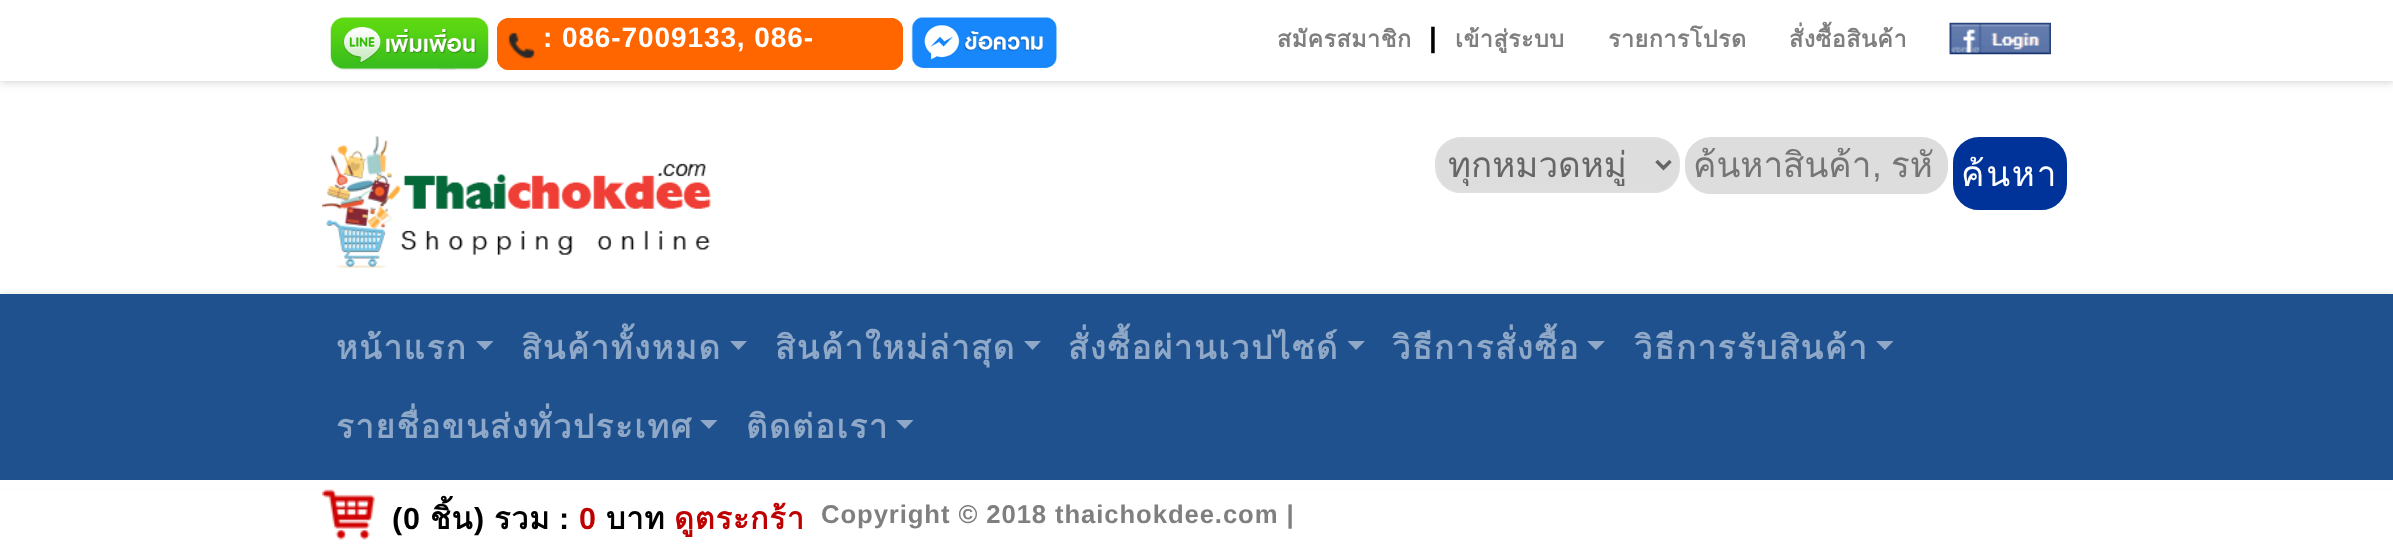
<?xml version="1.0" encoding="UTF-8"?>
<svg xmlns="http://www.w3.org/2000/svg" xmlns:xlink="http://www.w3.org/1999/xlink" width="2393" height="559">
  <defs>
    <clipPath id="clip1"><rect x="1449" y="144" width="196" height="42" /></clipPath>
    <clipPath id="clip2"><rect x="1694" y="137" width="245" height="56" /></clipPath>
    <clipPath id="clip3"><rect x="1955" y="138" width="110" height="70" rx="25" /></clipPath>
  </defs>
  <rect width="100%" height="100%" fill="#ffffff" />
  <rect y="2" width="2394" height="80" fill="#d0cfcf" filter="blur(4.5px)" />
  <rect width="2393" height="81" fill="#ffffff" />
  <image x="330" y="17" width="159" height="53" xlink:href="image1.png" />
  <rect x="497" y="18" width="406" height="52" rx="12" fill="#ff6600" />
  <image x="507" y="32" width="29" height="27" xlink:href="image2.png" />
  <rect x="498" y="19" width="404" height="50" rx="11" fill="none" stroke="#ff6600" stroke-width="2" />
  <image x="911" y="17" width="146" height="51" xlink:href="image3.png" />
  <image x="1949" y="22" width="102" height="33" xlink:href="image4.png" />
  <image x="322" y="136" width="389" height="132" xlink:href="image5.png" />
  <rect x="1436" y="138" width="243" height="54" rx="25" fill="#dddddd" stroke="#dfdfdf" stroke-width="2" />
  <path d="M 1656.5 161 l 7 7 l 7 -7" fill="none" stroke="#666666" stroke-width="3.5" />
  <rect x="1686" y="138" width="261" height="55" rx="25" fill="#dddddd" stroke="#dddddd" stroke-width="2" />
  <rect x="1954" y="138" width="112" height="71" rx="25" fill="#003399" stroke="#003399" stroke-width="2" />
  <rect y="296" width="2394" height="185" fill="#d0cfcf" filter="blur(4.5px)" />
  <rect y="294" width="2393" height="186" fill="#1f518e" />
  <path d="M 476 341 h 17.5 l -8.5 9 z" fill="#8fa8c7" />
  <path d="M 730 341 h 17 l -8.5 9 z" fill="#8fa8c7" />
  <path d="M 1024 341 h 17 l -8.5 9 z" fill="#8fa8c7" />
  <path d="M 1347.5 341 h 17.5 l -9 9 z" fill="#8fa8c7" />
  <path d="M 1587 341 h 18 l -9 9 z" fill="#8fa8c7" />
  <path d="M 1876 341 h 17.5 l -8.5 9 z" fill="#8fa8c7" />
  <path d="M 700 420 h 17.5 l -8.5 9 z" fill="#8fa8c7" />
  <path d="M 896 420 h 17.5 l -8.5 9 z" fill="#8fa8c7" />
  <rect y="480" width="2393" height="8" fill="#ffffff" />
  <image x="322" y="489" width="53" height="51" xlink:href="image6.png" />
  <text x="543" y="47" style="font-family: Liberation Sans; font-size: 28px; font-weight: bold; letter-spacing: 0.9px; fill: #ffffff">: 086-7009133, 086-</text>
  <text x="1277" y="47" style="font-family: Loma; font-size: 23.25px; font-weight: bold; letter-spacing: 0.5px; fill: #807f7f">สมัครสมาชิก</text>
  <text x="1429" y="47" style="font-family: Liberation Sans; font-size: 28px; font-weight: bold; letter-spacing: 0.9px; fill: #000000">|</text>
  <text x="1455" y="47" style="font-family: Loma; font-size: 23.25px; font-weight: bold; letter-spacing: 0.5px; fill: #807f7f">เข้าสู่ระบบ</text>
  <text x="1608" y="47" style="font-family: Loma; font-size: 23.25px; font-weight: bold; letter-spacing: 0.5px; fill: #807f7f">รายการโปรด</text>
  <text x="1789" y="47" style="font-family: Loma; font-size: 23.25px; font-weight: bold; letter-spacing: 0.5px; fill: #807f7f">สั่งซื้อสินค้า</text>
  <g clip-path="url(#clip1)">
    <text x="1448" y="177" style="font-family: Loma; font-size: 35px; fill: #666666">ทุกหมวดหมู่</text>
  </g>
  <g clip-path="url(#clip2)">
    <text x="1693" y="177" style="font-family: Loma; font-size: 35px; fill: #757575">ค้นหาสินค้า</text>
  </g>
  <text x="1872" y="177" style="font-family: Liberation Sans; font-size: 35px; fill: #757575">,</text>
  <text x="1891" y="177" style="font-family: Loma; font-size: 35px; fill: #757575">รหั</text>
  <g clip-path="url(#clip3)">
    <text x="1961" y="186" style="font-family: Loma; font-size: 35px; letter-spacing: 1.75px; fill: #ffffff">ค้นหา</text>
  </g>
  <text x="336" y="359" style="font-family: Loma; font-size: 32.75px; font-weight: bold; letter-spacing: 1.75px; fill: #8fa8c7">หน้าแรก</text>
  <text x="521" y="359" style="font-family: Loma; font-size: 32.75px; font-weight: bold; letter-spacing: 1.75px; fill: #8fa8c7">สินค้าทั้งหมด</text>
  <text x="775" y="359" style="font-family: Loma; font-size: 32.75px; font-weight: bold; letter-spacing: 1.75px; fill: #8fa8c7">สินค้าใหม่ล่าสุด</text>
  <text x="1068" y="359" style="font-family: Loma; font-size: 32.75px; font-weight: bold; letter-spacing: 1.75px; fill: #8fa8c7">สั่งซื้อผ่านเวปไซด์</text>
  <text x="1392" y="359" style="font-family: Loma; font-size: 32.75px; font-weight: bold; letter-spacing: 1.75px; fill: #8fa8c7">วิธีการสั่งซื้อ</text>
  <text x="1634" y="359" style="font-family: Loma; font-size: 32.75px; font-weight: bold; letter-spacing: 1.75px; fill: #8fa8c7">วิธีการรับสินค้า</text>
  <text x="336" y="438" style="font-family: Loma; font-size: 32.75px; font-weight: bold; letter-spacing: 1.75px; fill: #8fa8c7">รายชื่อขนส่งทั่วประเทศ</text>
  <text x="746" y="438" style="font-family: Loma; font-size: 32.75px; font-weight: bold; letter-spacing: 1.75px; fill: #8fa8c7">ติดต่อเรา</text>
  <text x="392" y="529" style="font-family: Liberation Sans; font-size: 30.5px; font-weight: bold; letter-spacing: 0.9px; fill: #000000">(0</text>
  <text x="430" y="529" style="font-family: Loma; font-size: 30.5px; font-weight: bold; letter-spacing: 0.9px; fill: #000000">ชิ้น</text>
  <text x="474" y="529" style="font-family: Liberation Sans; font-size: 30.5px; font-weight: bold; letter-spacing: 0.9px; fill: #000000">)</text>
  <text x="494" y="529" style="font-family: Loma; font-size: 30.5px; font-weight: bold; letter-spacing: 0.9px; fill: #000000">รวม</text>
  <text x="559" y="529" style="font-family: Liberation Sans; font-size: 30.5px; font-weight: bold; letter-spacing: 0.9px; fill: #000000">:</text>
  <text x="579" y="529" style="font-family: Liberation Sans; font-size: 30.5px; font-weight: bold; letter-spacing: 0.9px; fill: #bf0000">0</text>
  <text x="606" y="529" style="font-family: Loma; font-size: 30.5px; font-weight: bold; letter-spacing: 0.9px; fill: #000000">บาท</text>
  <text x="674" y="529" style="font-family: Loma; font-size: 30.5px; font-weight: bold; letter-spacing: 0.9px; fill: #bf0000">ดูตระกร้า</text>
  <text x="821" y="523" style="font-family: Liberation Sans; font-size: 25.7px; font-weight: bold; letter-spacing: 0.9px; fill: #807f7f">Copyright © 2018 thaichokdee.com |</text>
</svg>
